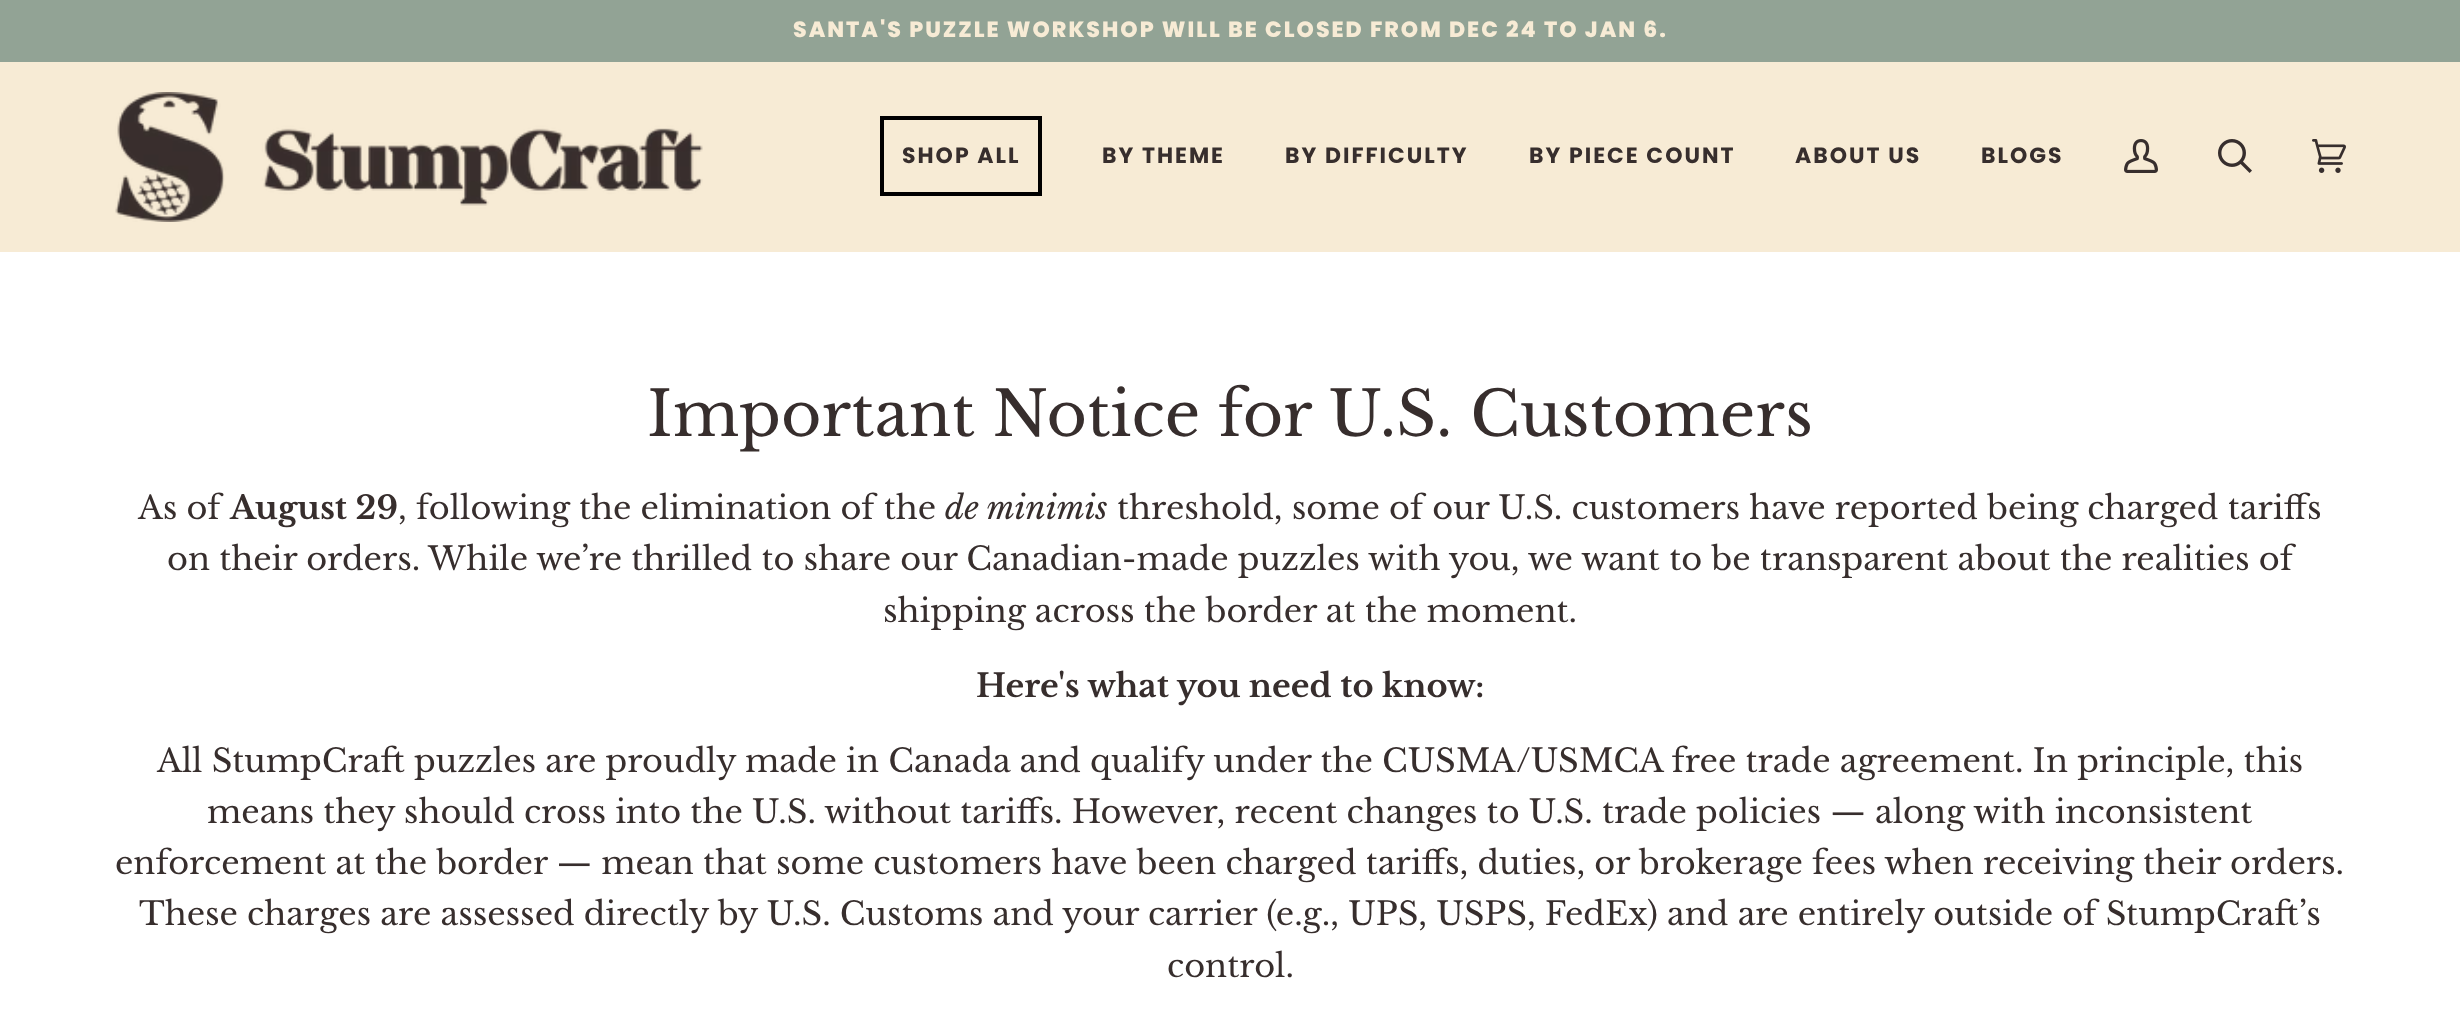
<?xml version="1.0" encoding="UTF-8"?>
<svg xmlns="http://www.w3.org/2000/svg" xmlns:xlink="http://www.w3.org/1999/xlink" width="2460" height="1035">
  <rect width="100%" height="100%" fill="#ffffff" />
  <rect width="2460" height="62" fill="#92a395" />
  <rect y="62" width="2460" height="190" fill="#f7ebd5" />
  <image x="115" y="92" width="588" height="130" xlink:href="image1.png" />
  <rect x="882" y="118" width="158" height="76" fill="none" stroke="#000000" stroke-width="4" />
  <image x="2124" y="139" width="34" height="34" xlink:href="image2.png" />
  <image x="2218" y="139" width="34" height="34" xlink:href="image3.png" />
  <image x="2312" y="139" width="34" height="34" xlink:href="image4.png" />
  <text x="793" y="37" style="font-family: Poppins; font-size: 22px; font-weight: 800; letter-spacing: 2px; fill: #f7ebd5">SANTA'S PUZZLE WORKSHOP WILL BE CLOSED FROM DEC 24 TO JAN 6.</text>
  <text x="902" y="163" style="font-family: Poppins; font-size: 22px; font-weight: bold; letter-spacing: 2px; fill: #372e2d">SHOP ALL</text>
  <text x="1102" y="163" style="font-family: Poppins; font-size: 22px; font-weight: bold; letter-spacing: 2px; fill: #372e2d">BY THEME</text>
  <text x="1285" y="163" style="font-family: Poppins; font-size: 22px; font-weight: bold; letter-spacing: 2px; fill: #372e2d">BY DIFFICULTY</text>
  <text x="1529" y="163" style="font-family: Poppins; font-size: 22px; font-weight: bold; letter-spacing: 2px; fill: #372e2d">BY PIECE COUNT</text>
  <text x="1795" y="163" style="font-family: Poppins; font-size: 22px; font-weight: bold; letter-spacing: 2px; fill: #372e2d">ABOUT US</text>
  <text x="1981" y="163" style="font-family: Poppins; font-size: 22px; font-weight: bold; letter-spacing: 2px; fill: #372e2d">BLOGS</text>
  <text x="647" y="436" style="font-family: Libre Baskerville; font-size: 61.9px; fill: #372e2d">Important Notice for U.S. Customers</text>
  <text x="138" y="519" style="font-family: Libre Baskerville; font-size: 32px; fill: #372e2d">As of</text>
  <text x="230" y="519" style="font-family: Libre Baskerville; font-size: 32px; font-weight: bold; fill: #372e2d">August 29</text>
  <text x="398" y="519" style="font-family: Libre Baskerville; font-size: 32px; fill: #372e2d">, following the elimination of the</text>
  <text x="945" y="519" style="font-family: Libre Baskerville; font-size: 32px; font-style: italic; fill: #372e2d">de minimis</text>
  <text x="1117" y="519" style="font-family: Libre Baskerville; font-size: 32px; fill: #372e2d">threshold, some of our U.S. customers have reported being charged tariffs</text>
  <text x="167" y="570" style="font-family: Libre Baskerville; font-size: 32px; fill: #372e2d">on their orders. While we’re thrilled to share our Canadian-made puzzles with you, we want to be transparent about the realities of</text>
  <text x="883" y="622" style="font-family: Libre Baskerville; font-size: 32px; fill: #372e2d">shipping across the border at the moment.</text>
  <text x="976" y="697" style="font-family: Libre Baskerville; font-size: 32px; font-weight: bold; fill: #372e2d">Here's what you need to know:</text>
  <text x="157" y="772" style="font-family: Libre Baskerville; font-size: 32px; fill: #372e2d">All StumpCraft puzzles are proudly made in Canada and qualify under the CUSMA/USMCA free trade agreement. In principle, this</text>
  <text x="207" y="823" style="font-family: Libre Baskerville; font-size: 32px; fill: #372e2d">means they should cross into the U.S. without tariffs. However, recent changes to U.S. trade policies — along with inconsistent</text>
  <text x="115" y="874" style="font-family: Libre Baskerville; font-size: 32px; fill: #372e2d">enforcement at the border — mean that some customers have been charged tariffs, duties, or brokerage fees when receiving their orders.</text>
  <text x="139" y="925" style="font-family: Libre Baskerville; font-size: 32px; fill: #372e2d">These charges are assessed directly by U.S. Customs and your carrier (e.g., UPS, USPS, FedEx) and are entirely outside of StumpCraft’s</text>
  <text x="1167" y="977" style="font-family: Libre Baskerville; font-size: 32px; fill: #372e2d">control.</text>
</svg>
